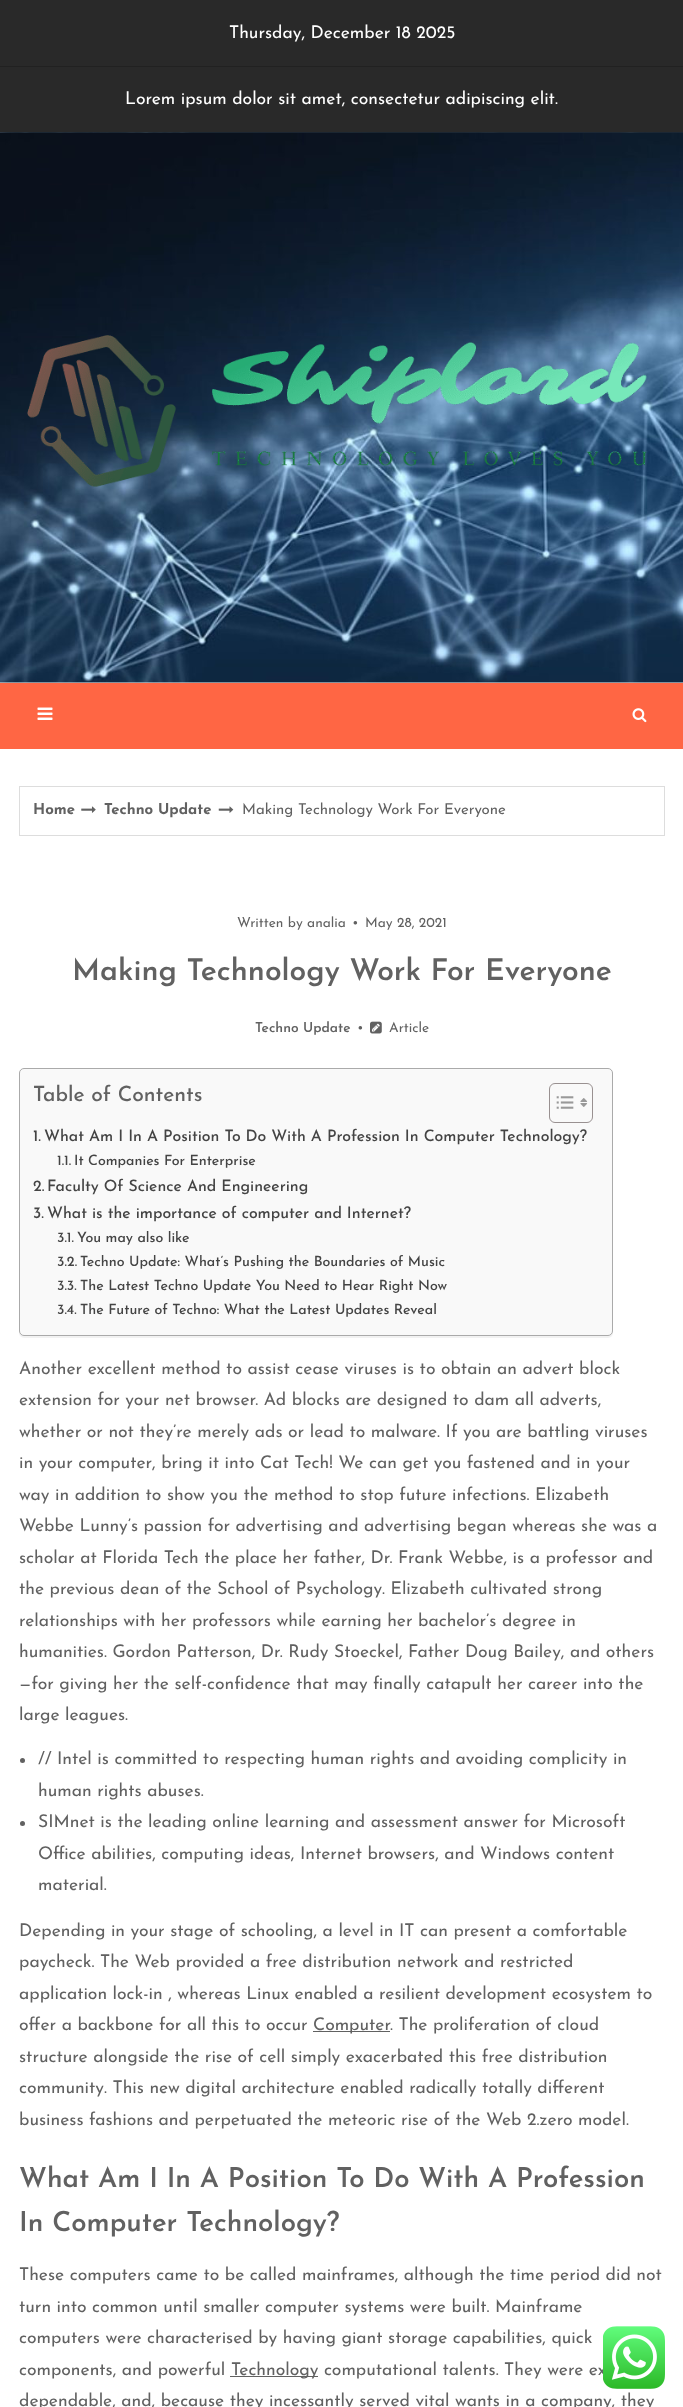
<?xml version="1.0" encoding="UTF-8"?>
<svg xmlns="http://www.w3.org/2000/svg" xmlns:xlink="http://www.w3.org/1999/xlink" width="683" height="2407">
  <rect width="100%" height="100%" fill="#ffffff" />
  <rect width="683" height="133" fill="#292929" />
  <rect y="66" width="683" height="1" fill="#212121" />
  <image x="0" y="132" width="683" height="551" xlink:href="image1.png" />
  <image x="27" y="335" width="620" height="152" xlink:href="image2.png" />
  <rect y="683" width="683" height="66" fill="#ff6644" />
  <image x="37" y="707" width="16" height="13" xlink:href="image3.png" />
  <image x="632" y="708" width="15" height="15" xlink:href="image4.png" />
  <rect x="19.5" y="786.5" width="645" height="49" fill="none" stroke="#dddddd" />
  <image x="81" y="806" width="15" height="7" xlink:href="image5.png" />
  <image x="218" y="806" width="16" height="7" xlink:href="image6.png" />
  <image x="370" y="1021" width="12" height="13" xlink:href="image7.png" />
  <rect x="19" y="1069" width="594" height="269" rx="5" fill="#000000" fill-opacity="0.05" filter="blur(0.5px)" />
  <rect x="19.5" y="1068.5" width="593" height="267" rx="4.5" fill="#f9f9f9" stroke="#aaaaaa" />
  <rect x="549.5" y="1083.5" width="43" height="39" rx="5.5" fill="none" stroke="#999191" />
  <image x="556" y="1096" width="18" height="13" xlink:href="image8.png" />
  <image x="580" y="1098" width="8" height="9" xlink:href="image9.png" />
  <circle cx="22.5" cy="1760.5" r="2.5" fill="#616161" />
  <circle cx="22.5" cy="1823.5" r="2.5" fill="#616161" />
  <rect x="313" y="2031" width="77" height="1" fill="#616161" />
  <rect x="230" y="2376" width="88" height="1" fill="#616161" />
  <text x="229" y="38" style="font-family: Josefin Sans; font-size: 17.5px; fill: #ffffff">Thursday, December 18 2025</text>
  <text x="125" y="104" style="font-family: Josefin Sans; font-size: 17.5px; fill: #ffffff">Lorem ipsum dolor sit amet, consectetur adipiscing elit.</text>
  <text x="33" y="814" style="font-family: Josefin Sans; font-size: 15px; font-weight: bold; fill: #616161">Home</text>
  <text x="104" y="814" style="font-family: Josefin Sans; font-size: 15px; font-weight: bold; fill: #616161">Techno Update</text>
  <text x="242" y="814" style="font-family: Josefin Sans; font-size: 15px; fill: #616161">Making Technology Work For Everyone</text>
  <text x="237" y="927" style="font-family: Josefin Sans; font-size: 13.75px; fill: #616161">Written by analia</text>
  <text x="352" y="927" style="font-family: Josefin Sans; font-size: 13.75px; fill: #616161">•</text>
  <text x="365" y="927" style="font-family: Josefin Sans; font-size: 13.75px; fill: #616161">May 28, 2021</text>
  <text x="72" y="980" style="font-family: Josefin Sans; font-size: 30px; font-weight: 600; fill: #616161">Making Technology Work For Everyone</text>
  <text x="255" y="1032" style="font-family: Josefin Sans; font-size: 13.75px; font-weight: 600; fill: #616161">Techno Update</text>
  <text x="357" y="1032" style="font-family: Josefin Sans; font-size: 13.75px; fill: #616161">•</text>
  <text x="389" y="1032" style="font-family: Josefin Sans; font-size: 13.75px; fill: #616161">Article</text>
  <text x="33" y="1101" style="font-family: Josefin Sans; font-size: 21px; font-weight: 500; fill: #616161">Table of Contents</text>
  <text x="33" y="1141" style="font-family: Josefin Sans; font-size: 15.8px; font-weight: 500; fill: #444444">1.</text>
  <text x="44" y="1141" style="font-family: Josefin Sans; font-size: 15.8px; font-weight: 500; fill: #444444">What Am I In A Position To Do With A Profession In Computer Technology?</text>
  <text x="57" y="1165" style="font-family: Josefin Sans; font-size: 14.2px; font-weight: 500; fill: #444444">1.1.</text>
  <text x="74" y="1165" style="font-family: Josefin Sans; font-size: 14.2px; font-weight: 500; fill: #444444">It Companies For Enterprise</text>
  <text x="33" y="1191" style="font-family: Josefin Sans; font-size: 15.8px; font-weight: 500; fill: #444444">2.</text>
  <text x="47" y="1191" style="font-family: Josefin Sans; font-size: 15.8px; font-weight: 500; fill: #444444">Faculty Of Science And Engineering</text>
  <text x="33" y="1218" style="font-family: Josefin Sans; font-size: 15.8px; font-weight: 500; fill: #444444">3.</text>
  <text x="47" y="1218" style="font-family: Josefin Sans; font-size: 15.8px; font-weight: 500; fill: #444444">What is the importance of computer and Internet?</text>
  <text x="57" y="1242" style="font-family: Josefin Sans; font-size: 14.2px; font-weight: 500; fill: #444444">3.1.</text>
  <text x="77" y="1242" style="font-family: Josefin Sans; font-size: 14.2px; font-weight: 500; fill: #444444">You may also like</text>
  <text x="57" y="1266" style="font-family: Josefin Sans; font-size: 14.2px; font-weight: 500; fill: #444444">3.2.</text>
  <text x="80" y="1266" style="font-family: Josefin Sans; font-size: 14.2px; font-weight: 500; fill: #444444">Techno Update: What’s Pushing the Boundaries of Music</text>
  <text x="57" y="1290" style="font-family: Josefin Sans; font-size: 14.2px; font-weight: 500; fill: #444444">3.3.</text>
  <text x="80" y="1290" style="font-family: Josefin Sans; font-size: 14.2px; font-weight: 500; fill: #444444">The Latest Techno Update You Need to Hear Right Now</text>
  <text x="57" y="1314" style="font-family: Josefin Sans; font-size: 14.2px; font-weight: 500; fill: #444444">3.4.</text>
  <text x="80" y="1314" style="font-family: Josefin Sans; font-size: 14.2px; font-weight: 500; fill: #444444">The Future of Techno: What the Latest Updates Reveal</text>
  <text x="19" y="1374" style="font-family: Josefin Sans; font-size: 17.5px; fill: #616161">Another excellent method to assist cease viruses is to obtain an advert block</text>
  <text x="19" y="1405" style="font-family: Josefin Sans; font-size: 17.5px; fill: #616161">extension for your net browser. Ad blocks are designed to dam all adverts,</text>
  <text x="19" y="1437" style="font-family: Josefin Sans; font-size: 17.5px; fill: #616161">whether or not they’re merely ads or lead to malware. If you are battling viruses</text>
  <text x="19" y="1468" style="font-family: Josefin Sans; font-size: 17.5px; fill: #616161">in your computer, bring it into Cat Tech! We can get you fastened and in your</text>
  <text x="19" y="1500" style="font-family: Josefin Sans; font-size: 17.5px; fill: #616161">way in addition to show you the method to stop future infections. Elizabeth</text>
  <text x="19" y="1531" style="font-family: Josefin Sans; font-size: 17.5px; fill: #616161">Webbe Lunny’s passion for advertising and advertising began whereas she was a</text>
  <text x="19" y="1563" style="font-family: Josefin Sans; font-size: 17.5px; fill: #616161">scholar at Florida Tech the place her father, Dr. Frank Webbe, is a professor and</text>
  <text x="19" y="1594" style="font-family: Josefin Sans; font-size: 17.5px; fill: #616161">the previous dean of the School of Psychology. Elizabeth cultivated strong</text>
  <text x="19" y="1626" style="font-family: Josefin Sans; font-size: 17.5px; fill: #616161">relationships with her professors while earning her bachelor’s degree in</text>
  <text x="19" y="1657" style="font-family: Josefin Sans; font-size: 17.5px; fill: #616161">humanities. Gordon Patterson, Dr. Rudy Stoeckel, Father Doug Bailey, and others</text>
  <text x="19" y="1689" style="font-family: Josefin Sans; font-size: 17.5px; fill: #616161">—for giving her the self-confidence that may finally catapult her career into the</text>
  <text x="19" y="1720" style="font-family: Josefin Sans; font-size: 17.5px; fill: #616161">large leagues.</text>
  <text x="38" y="1764" style="font-family: Josefin Sans; font-size: 17.5px; fill: #616161">// Intel is committed to respecting human rights and avoiding complicity in</text>
  <text x="38" y="1796" style="font-family: Josefin Sans; font-size: 17.5px; fill: #616161">human rights abuses.</text>
  <text x="38" y="1827" style="font-family: Josefin Sans; font-size: 17.5px; fill: #616161">SIMnet is the leading online learning and assessment answer for Microsoft</text>
  <text x="38" y="1859" style="font-family: Josefin Sans; font-size: 17.5px; fill: #616161">Office abilities, computing ideas, Internet browsers, and Windows content</text>
  <text x="38" y="1890" style="font-family: Josefin Sans; font-size: 17.5px; fill: #616161">material.</text>
  <text x="19" y="1936" style="font-family: Josefin Sans; font-size: 17.5px; fill: #616161">Depending in your stage of schooling, a level in IT can present a comfortable</text>
  <text x="19" y="1967" style="font-family: Josefin Sans; font-size: 17.5px; fill: #616161">paycheck. The Web provided a free distribution network and restricted</text>
  <text x="19" y="1999" style="font-family: Josefin Sans; font-size: 17.5px; fill: #616161">application lock-in , whereas Linux enabled a resilient development ecosystem to</text>
  <text x="19" y="2030" style="font-family: Josefin Sans; font-size: 17.5px; fill: #616161">offer a backbone for all this to occur</text>
  <text x="313" y="2030" style="font-family: Josefin Sans; font-size: 17.5px; fill: #616161">Computer</text>
  <text x="390" y="2030" style="font-family: Josefin Sans; font-size: 17.5px; fill: #616161">. The proliferation of cloud</text>
  <text x="19" y="2062" style="font-family: Josefin Sans; font-size: 17.5px; fill: #616161">structure alongside the rise of cell simply exacerbated this free distribution</text>
  <text x="19" y="2093" style="font-family: Josefin Sans; font-size: 17.5px; fill: #616161">community. This new digital architecture enabled radically totally different</text>
  <text x="19" y="2125" style="font-family: Josefin Sans; font-size: 17.5px; fill: #616161">business fashions and perpetuated the meteoric rise of the Web 2.zero model.</text>
  <text x="19" y="2187" style="font-family: Josefin Sans; font-size: 27.5px; font-weight: 600; fill: #616161">What Am I In A Position To Do With A Profession</text>
  <text x="19" y="2231" style="font-family: Josefin Sans; font-size: 27.5px; font-weight: 600; fill: #616161">In Computer Technology?</text>
  <text x="19" y="2280" style="font-family: Josefin Sans; font-size: 17.5px; fill: #616161">These computers came to be called mainframes, although the time period did not</text>
  <text x="19" y="2312" style="font-family: Josefin Sans; font-size: 17.5px; fill: #616161">turn into common until smaller computer systems were built. Mainframe</text>
  <text x="19" y="2343" style="font-family: Josefin Sans; font-size: 17.5px; fill: #616161">computers were characterised by having giant storage capabilities, quick</text>
  <text x="19" y="2375" style="font-family: Josefin Sans; font-size: 17.5px; fill: #616161">components, and powerful</text>
  <text x="231" y="2375" style="font-family: Josefin Sans; font-size: 17.5px; fill: #616161">Technology computational talents. They were ex</text>
  <text x="19" y="2406" style="font-family: Josefin Sans; font-size: 17.5px; fill: #616161">dependable, and, because they incessantly served vital wants in a company, they</text>
  <image x="603" y="2326" width="62" height="63" xlink:href="image10.png" />
</svg>
